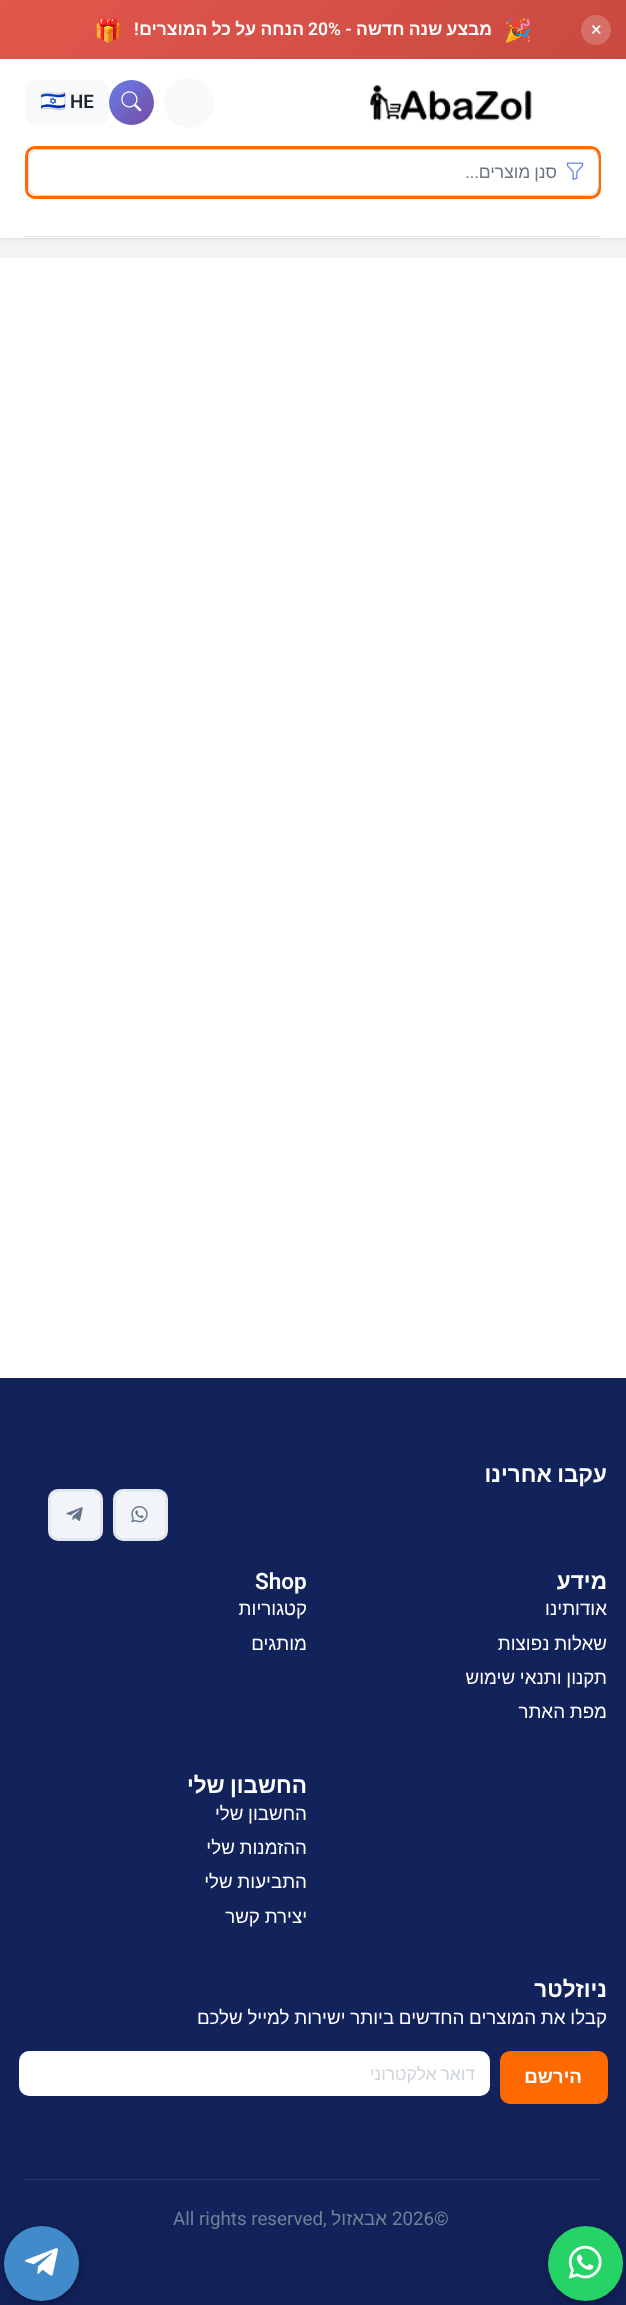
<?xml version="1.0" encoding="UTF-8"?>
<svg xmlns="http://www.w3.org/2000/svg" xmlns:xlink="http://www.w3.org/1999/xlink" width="626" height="2305">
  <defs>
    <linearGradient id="g1" gradientUnits="userSpaceOnUse" x1="142" y1="-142" x2="484" y2="201"><stop offset="0" stop-color="#e2574c" /><stop offset="1" stop-color="#c94a40" /></linearGradient>
    <linearGradient id="g2" gradientUnits="userSpaceOnUse" x1="109" y1="80" x2="154" y2="125"><stop offset="0" stop-color="#667eea" /><stop offset="1" stop-color="#764ba2" /></linearGradient>
  </defs>
  <rect width="100%" height="100%" fill="#f4f4f4" />
  <rect width="626" height="59" fill="url(#g1)" />
  <circle cx="596" cy="30" r="15" fill="#d66f67" />
  <rect y="61" width="626" height="180" fill="#000000" fill-opacity="0.05" filter="blur(2.5px)" />
  <rect y="59" width="626" height="179" fill="#ffffff" />
  <rect y="238" width="626" height="1" fill="#e4e4e4" />
  <rect x="25" y="236" width="576" height="1" fill="#e5e7ea" />
  <image x="369" y="84" width="163" height="37" xlink:href="image1.png" />
  <circle cx="189" cy="103" r="25" fill="#f8f9fa" />
  <circle cx="131.5" cy="102.5" r="22.5" fill="url(#g2)" />
  <image x="121" y="91" width="21" height="21" xlink:href="image2.png" />
  <rect x="25" y="80" width="84" height="45" rx="10" fill="#f8f9fa" />
  <rect x="26.5" y="147.5" width="573" height="50" rx="8.5" fill="none" stroke="#ff6a00" stroke-width="3" />
  <rect x="28.5" y="149.5" width="570" height="46" rx="9.5" fill="#ffffff" stroke="#ced4da" />
  <image x="566" y="162" width="18" height="18" xlink:href="image3.png" />
  <rect y="258" width="626" height="1120" fill="#ffffff" />
  <rect y="1378" width="626" height="927" fill="#12225b" />
  <rect x="114.5" y="1490.5" width="52" height="49" rx="8.5" fill="#f1f5f9" stroke="#e2e8f0" stroke-width="3" />
  <image x="131" y="1506" width="17" height="17" xlink:href="image4.png" />
  <rect x="49.5" y="1490.5" width="52" height="49" rx="8.5" fill="#f1f5f9" stroke="#e2e8f0" stroke-width="3" />
  <image x="66" y="1507" width="17" height="14" xlink:href="image5.png" />
  <rect x="500" y="2051" width="108" height="53" rx="10" fill="#ff6a00" />
  <rect x="19" y="2051" width="471" height="45" rx="10" fill="#ffffff" />
  <rect x="25" y="2179" width="576" height="1" fill="#2a386b" />
  <rect x="548" y="2229" width="75" height="75" rx="37.5" fill="#000000" fill-opacity="0.3" filter="blur(6px)" />
  <circle cx="585.5" cy="2263.5" r="37.5" fill="#25d366" />
  <image x="568" y="2245" width="34" height="34" xlink:href="image6.png" />
  <rect x="4" y="2229" width="75" height="75" rx="37.5" fill="#000000" fill-opacity="0.3" filter="blur(6px)" />
  <circle cx="41.5" cy="2263.5" r="37.5" fill="#428bca" />
  <image x="25" y="2248" width="33" height="28" xlink:href="image7.png" />
  <text x="591" y="36" style="font-family: Roboto; font-size: 20px; fill: #ffffff">×</text>
  <text x="504" y="38" style="font-family: Noto Color Emoji; font-size: 22.5px; font-weight: bold; fill: #ffffff">🎉</text>
  <text x="492" y="35" word-spacing="-0.5" style="font-family: Liberation Sans; font-size: 17.5px; font-weight: bold; direction: rtl; fill: #ffffff">מבצע שנה חדשה</text>
  <text x="308" y="35" style="font-family: Roboto; font-size: 17.5px; font-weight: 600; fill: #ffffff">20% -</text>
  <text x="304" y="35" word-spacing="-0.5" style="font-family: Liberation Sans; font-size: 17.5px; font-weight: bold; direction: rtl; fill: #ffffff">הנחה על כל המוצרים</text>
  <text x="134" y="35" style="font-family: Roboto; font-size: 17.5px; font-weight: 600; fill: #ffffff">!</text>
  <text x="94" y="38" style="font-family: Noto Color Emoji; font-size: 22.5px; font-weight: bold; fill: #ffffff">🎁</text>
  <text x="70" y="108" style="font-family: Roboto; font-size: 18.75px; font-weight: 600; fill: #212529">HE</text>
  <text x="40" y="108" style="font-family: Noto Color Emoji; font-size: 21px; font-weight: bold; fill: #212529">🇮🇱</text>
  <text x="557" y="178" word-spacing="-1" style="font-family: Liberation Sans; font-size: 17.5px; direction: rtl; fill: #6c757d">סנן מוצרים</text>
  <text x="479" y="178" style="font-family: Roboto; font-size: 17.5px; direction: rtl; fill: #6c757d">...</text>
  <text x="607" y="1482" word-spacing="-1" style="font-family: Liberation Sans; font-size: 22.5px; font-weight: bold; direction: rtl; fill: #ffffff">עקבו אחרינו</text>
  <text x="607" y="1589" style="font-family: Liberation Sans; font-size: 22.5px; font-weight: bold; direction: rtl; fill: #ffffff">מידע</text>
  <text x="607" y="1615" style="font-family: Liberation Sans; font-size: 18.75px; direction: rtl; fill: #ffffff">אודותינו</text>
  <text x="607" y="1650" word-spacing="-0.5" style="font-family: Liberation Sans; font-size: 18.75px; direction: rtl; fill: #ffffff">שאלות נפוצות</text>
  <text x="607" y="1684" word-spacing="-0.5" style="font-family: Liberation Sans; font-size: 18.75px; direction: rtl; fill: #ffffff">תקנון ותנאי שימוש</text>
  <text x="607" y="1718" word-spacing="-0.5" style="font-family: Liberation Sans; font-size: 18.75px; direction: rtl; fill: #ffffff">מפת האתר</text>
  <text x="255" y="1589" style="font-family: Roboto; font-size: 22.5px; font-weight: 600; fill: #ffffff">Shop</text>
  <text x="307" y="1615" style="font-family: Liberation Sans; font-size: 18.75px; direction: rtl; fill: #ffffff">קטגוריות</text>
  <text x="307" y="1650" style="font-family: Liberation Sans; font-size: 18.75px; direction: rtl; fill: #ffffff">מותגים</text>
  <text x="307" y="1793" word-spacing="-1" style="font-family: Liberation Sans; font-size: 22.5px; font-weight: bold; direction: rtl; fill: #ffffff">החשבון שלי</text>
  <text x="307" y="1820" word-spacing="-0.5" style="font-family: Liberation Sans; font-size: 18.75px; direction: rtl; fill: #ffffff">החשבון שלי</text>
  <text x="307" y="1854" word-spacing="-0.5" style="font-family: Liberation Sans; font-size: 18.75px; direction: rtl; fill: #ffffff">ההזמנות שלי</text>
  <text x="307" y="1888" word-spacing="-0.5" style="font-family: Liberation Sans; font-size: 18.75px; direction: rtl; fill: #ffffff">התביעות שלי</text>
  <text x="307" y="1923" word-spacing="-0.5" style="font-family: Liberation Sans; font-size: 18.75px; direction: rtl; fill: #ffffff">יצירת קשר</text>
  <text x="607" y="1997" style="font-family: Liberation Sans; font-size: 22.5px; font-weight: bold; direction: rtl; fill: #ffffff">ניוזלטר</text>
  <text x="607" y="2024" word-spacing="-0.5" style="font-family: Liberation Sans; font-size: 18.75px; direction: rtl; fill: #ffffff">קבלו את המוצרים החדשים ביותר ישירות למייל שלכם</text>
  <text x="582" y="2083" style="font-family: Liberation Sans; font-size: 18.75px; font-weight: bold; direction: rtl; fill: #ffffff">הירשם</text>
  <text x="475" y="2080" word-spacing="-1" style="font-family: Liberation Sans; font-size: 17.5px; direction: rtl; fill: #ced4da">דואר אלקטרוני</text>
  <text x="434" y="2225" style="font-family: Roboto; font-size: 18.75px; fill: #718096">©</text>
  <text x="392" y="2225" style="font-family: Roboto; font-size: 18.75px; fill: #718096">2026</text>
  <text x="387" y="2225" style="font-family: Liberation Sans; font-size: 18.75px; direction: rtl; fill: #718096">אבאזול</text>
  <text x="323" y="2225" style="font-family: Roboto; font-size: 18.75px; fill: #718096">,</text>
  <text x="173" y="2225" style="font-family: Roboto; font-size: 18.75px; fill: #718096">All rights reserved</text>
</svg>
